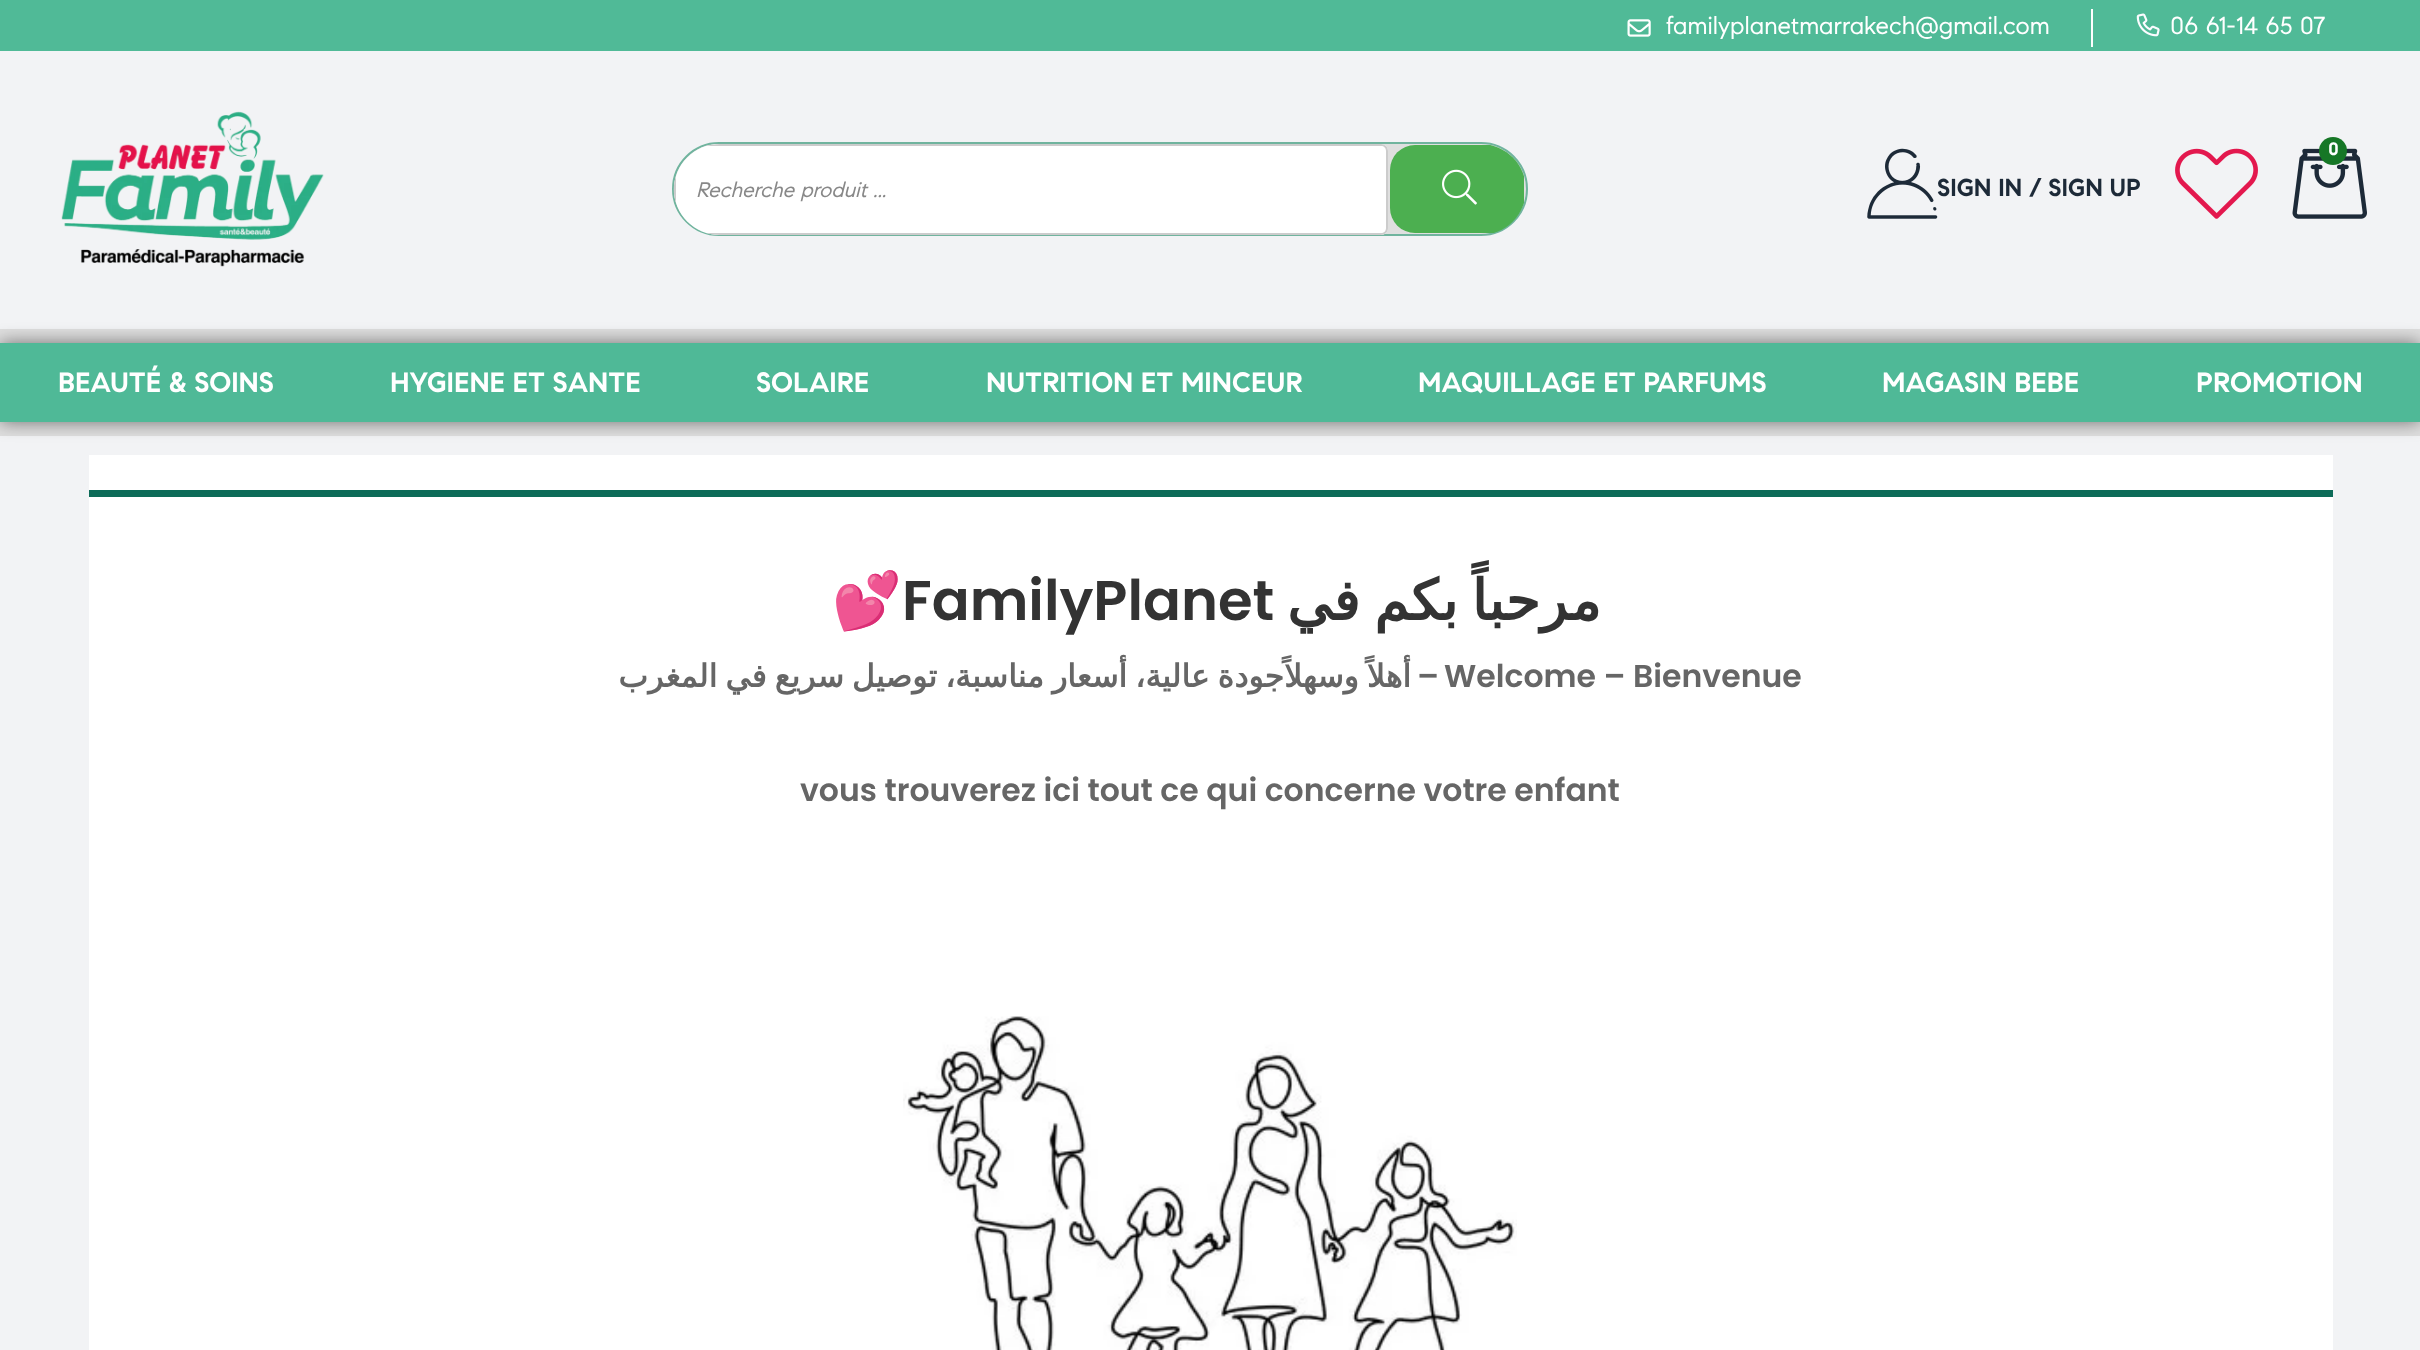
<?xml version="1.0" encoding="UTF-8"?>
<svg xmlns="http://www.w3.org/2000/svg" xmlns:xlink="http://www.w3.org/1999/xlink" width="2420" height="1350">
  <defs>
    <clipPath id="clip1"><rect x="674" y="144" width="852" height="91" rx="45.5" /></clipPath>
  </defs>
  <rect width="100%" height="100%" fill="#f2f3f5" />
  <rect width="2420" height="51" fill="#50ba97" />
  <image x="1627" y="19" width="24" height="18" xlink:href="image1.png" />
  <rect x="2091" y="9" width="2" height="38" fill="#fffefe" />
  <image x="2136" y="13" width="24" height="24" xlink:href="image2.png" />
  <image x="61" y="111" width="263" height="156" xlink:href="image3.png" />
  <rect x="673" y="143" width="854" height="92" rx="46" fill="#dfdfdf" stroke="#70b49e" stroke-width="2" />
  <path d="M 719.5 144 h 661.5 c 4 0 7 3 7 7 v 77 c 0 4 -3 7 -7 7 h -661.5 c -25 0 -45.5 -20.5 -45.5 -45.5 c 0 -25 20.5 -45.5 45.5 -45.5 z" fill="#ffffff" />
  <path d="M 720 144 c -5 0 -10 1 -14 2 h 675 c 3 0 5 2 5 5 v 77 c 0 3 -2 5 -5 5 h -675 c 4 1 9 2 14 2 h 661 c 4 0 7 -3 7 -7 v -77 c 0 -4 -3 -7 -7 -7 z m -44 59 c -3 -9 -3 -18 0 -27 z" fill="#cccccc" fill-rule="evenodd" />
  <g clip-path="url(#clip1)">
    <rect x="1390" y="145" width="134" height="88" rx="25" fill="#4caf50" />
  </g>
  <image x="1442" y="169" width="35" height="36" xlink:href="image4.png" />
  <image x="1867" y="148" width="71" height="71" xlink:href="image5.png" />
  <image x="2175" y="148" width="83" height="71" xlink:href="image6.png" />
  <image x="2292" y="148" width="75" height="71" xlink:href="image7.png" />
  <circle cx="2333" cy="151" r="14" fill="#167726" />
  <rect y="329" width="2420" height="107" fill="#dfdfdf" />
  <rect y="343" width="2420" height="79" fill="#000000" fill-opacity="0.5" filter="blur(9px)" />
  <rect y="343" width="2420" height="79" fill="#4fb997" />
  <rect x="89" y="455" width="2244" height="895" fill="#ffffff" />
  <rect x="89" y="490" width="2244" height="7" fill="#0d6b58" />
  <image x="903" y="1016" width="614" height="334" xlink:href="image8.png" />
  <text x="1666" y="34" style="font-family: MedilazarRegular; font-size: 24.5px; fill: #ffffff">familyplanetmarrakech@gmail.com</text>
  <text x="2170" y="34" style="font-family: MedilazarRegular; font-size: 24.5px; fill: #ffffff">06 61-14 65 07</text>
  <text x="696" y="197" style="font-family: MedilazarRegular; font-size: 21px; font-style: italic; fill: #888888">Recherche produit ...</text>
  <text x="1937" y="196" style="font-family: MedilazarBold; font-size: 24.5px; font-weight: bold; fill: #1d2a38">SIGN IN / SIGN UP</text>
  <text x="2328" y="155" style="font-family: MedilazarBold; font-size: 18px; font-weight: bold; fill: #ffffff">0</text>
  <text x="58" y="392" style="font-family: MedilazarBold; font-size: 28px; font-weight: bold; fill: #ffffff">BEAUTÉ &amp; SOINS</text>
  <text x="390" y="392" style="font-family: MedilazarBold; font-size: 28px; font-weight: bold; fill: #ffffff">HYGIENE ET SANTE</text>
  <text x="756" y="392" style="font-family: MedilazarBold; font-size: 28px; font-weight: bold; fill: #ffffff">SOLAIRE</text>
  <text x="986" y="392" style="font-family: MedilazarBold; font-size: 28px; font-weight: bold; fill: #ffffff">NUTRITION ET MINCEUR</text>
  <text x="1418" y="392" style="font-family: MedilazarBold; font-size: 28px; font-weight: bold; fill: #ffffff">MAQUILLAGE ET PARFUMS</text>
  <text x="1882" y="392" style="font-family: MedilazarBold; font-size: 28px; font-weight: bold; fill: #ffffff">MAGASIN BEBE</text>
  <text x="2196" y="392" style="font-family: MedilazarBold; font-size: 28px; font-weight: bold; fill: #ffffff">PROMOTION</text>
  <text x="832" y="620" style="font-family: Noto Color Emoji; font-size: 56px; font-weight: bold; fill: #333333">💕</text>
  <text x="902" y="620" style="font-family: Poppins; font-size: 56px; font-weight: 600; fill: #333333">FamilyPlanet</text>
  <text x="1601" y="620" word-spacing="-4" style="font-family: DejaVu Sans; font-size: 56px; font-weight: bold; direction: rtl; fill: #333333">مرحباً بكم في</text>
  <text x="1411" y="687" word-spacing="-2" style="font-family: DejaVu Sans; font-size: 31.5px; font-weight: bold; direction: rtl; fill: #666666">أهلاً وسهلاًجودة عالية، أسعار مناسبة، توصيل سريع في المغرب</text>
  <text x="1439" y="687" style="font-family: Poppins; font-size: 31.5px; font-weight: 600; direction: rtl; fill: #666666">–</text>
  <text x="1444" y="687" style="font-family: Poppins; font-size: 31.5px; font-weight: 600; fill: #666666">Welcome – Bienvenue</text>
  <text x="800" y="801" style="font-family: Poppins; font-size: 31.5px; font-weight: 600; fill: #666666">vous trouverez ici tout ce qui concerne votre enfant</text>
</svg>
